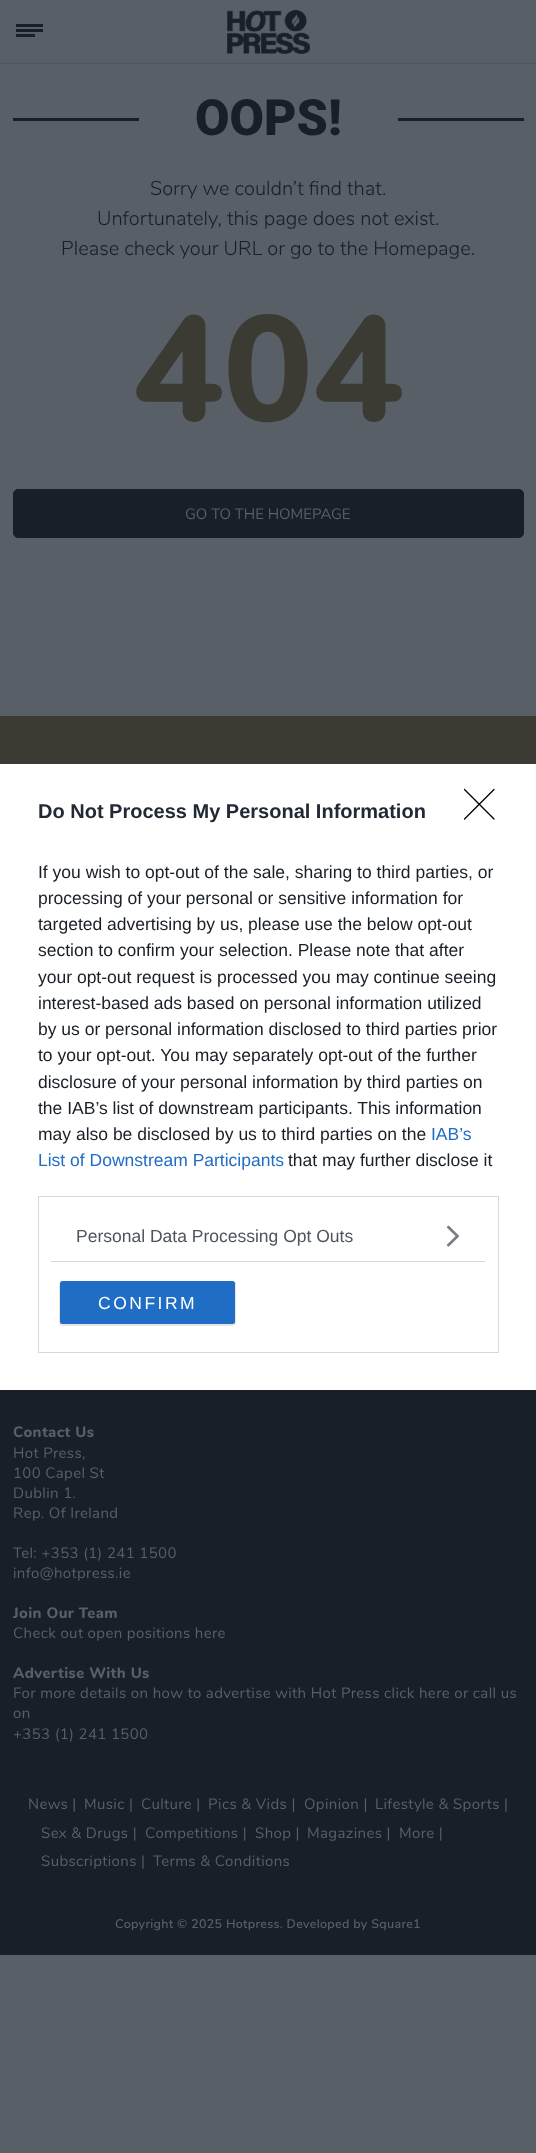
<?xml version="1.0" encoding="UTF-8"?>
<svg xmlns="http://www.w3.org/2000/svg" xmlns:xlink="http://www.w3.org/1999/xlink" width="536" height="2153">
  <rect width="100%" height="100%" fill="#595f67" />
  <image x="227" y="9" width="83" height="45" xlink:href="image1.png" />
  <rect y="63" width="536" height="1" fill="#4f555d" />
  <rect x="16" y="24" width="27" height="3" fill="#191f27" />
  <rect x="16" y="29" width="27" height="3" fill="#191f27" />
  <rect x="16" y="34" width="19" height="3" fill="#191f27" />
  <rect x="13" y="118" width="511" height="3" fill="#191f27" />
  <rect x="139" y="118" width="259" height="3" fill="#595f67" />
  <rect x="13.5" y="489.5" width="510" height="48" rx="4.5" fill="#191f27" stroke="#191f27" />
  <rect y="1390" width="536" height="565" fill="#191f27" />
  <rect y="716" width="536" height="48" fill="#3b3b34" />
  <rect y="764" width="536" height="626" fill="#ffffff" />
  <path d="M 464.5 789.5 l 29.5 29.5 m 0 -29.5 l -29.5 29.5" fill="none" stroke="#000000" stroke-width="1.3" stroke-linecap="round" stroke-linejoin="round" />
  <rect x="38.5" y="1196.5" width="460" height="156" fill="none" stroke="#d8d8d8" />
  <rect x="51" y="1261" width="434" height="1" fill="#d8d8d8" />
  <image x="446" y="1225" width="13" height="22" xlink:href="image2.png" />
  <rect x="59" y="1281" width="177" height="45" rx="4" fill="#000000" fill-opacity="0.1" filter="blur(0.5px)" />
  <rect x="60" y="1281" width="175" height="43" rx="2.5" fill="#206dc5" />
  <text x="195" y="135" style="font-family: Roboto; font-size: 50px; font-weight: 900; fill: #191f27">OOPS!</text>
  <text x="150" y="195" style="font-family: Nunito; font-size: 20px; font-weight: 300; fill: #191f27">Sorry we couldn’t find that.</text>
  <text x="97" y="225" style="font-family: Nunito; font-size: 20px; font-weight: 300; fill: #191f27">Unfortunately, this page does not exist.</text>
  <text x="61" y="255" style="font-family: Nunito; font-size: 20px; font-weight: 300; fill: #191f27">Please check your URL or go to the Homepage.</text>
  <text x="133" y="421" style="font-family: Nunito; font-size: 150px; font-weight: 800; fill: #3b3b34">404</text>
  <text x="185" y="519" style="font-family: Nunito; font-size: 15px; fill: #595f67">GO TO THE HOMEPAGE</text>
  <text x="13" y="1437" style="font-family: Nunito; font-size: 15px; font-weight: 800; letter-spacing: 0.38px; fill: #595f67">Contact Us</text>
  <text x="13" y="1458" style="font-family: Nunito; font-size: 15px; letter-spacing: 0.38px; fill: #595f67">Hot Press,</text>
  <text x="13" y="1478" style="font-family: Nunito; font-size: 15px; letter-spacing: 0.38px; fill: #595f67">100 Capel St</text>
  <text x="13" y="1498" style="font-family: Nunito; font-size: 15px; letter-spacing: 0.38px; fill: #595f67">Dublin 1.</text>
  <text x="13" y="1518" style="font-family: Nunito; font-size: 15px; letter-spacing: 0.38px; fill: #595f67">Rep. Of Ireland</text>
  <text x="13" y="1558" style="font-family: Nunito; font-size: 15px; letter-spacing: 0.38px; fill: #595f67">Tel: +353 (1) 241 1500</text>
  <text x="13" y="1578" style="font-family: Nunito; font-size: 15px; letter-spacing: 0.38px; fill: #595f67">info@hotpress.ie</text>
  <text x="13" y="1618" style="font-family: Nunito; font-size: 15px; font-weight: 800; letter-spacing: 0.38px; fill: #595f67">Join Our Team</text>
  <text x="13" y="1638" style="font-family: Nunito; font-size: 15px; letter-spacing: 0.38px; fill: #595f67">Check out open positions here</text>
  <text x="13" y="1678" style="font-family: Nunito; font-size: 15px; font-weight: 800; letter-spacing: 0.38px; fill: #595f67">Advertise With Us</text>
  <text x="13" y="1698" style="font-family: Nunito; font-size: 15px; letter-spacing: 0.38px; fill: #595f67">For more details on how to advertise with Hot Press click here or call us</text>
  <text x="13" y="1718" style="font-family: Nunito; font-size: 15px; letter-spacing: 0.38px; fill: #595f67">on</text>
  <text x="13" y="1739" style="font-family: Nunito; font-size: 15px; letter-spacing: 0.38px; fill: #595f67">+353 (1) 241 1500</text>
  <text x="28" y="1809" style="font-family: Nunito; font-size: 15px; letter-spacing: 0.38px; fill: #595f67">News |</text>
  <text x="84" y="1809" style="font-family: Nunito; font-size: 15px; letter-spacing: 0.38px; fill: #595f67">Music |</text>
  <text x="141" y="1809" style="font-family: Nunito; font-size: 15px; letter-spacing: 0.38px; fill: #595f67">Culture |</text>
  <text x="208" y="1809" style="font-family: Nunito; font-size: 15px; letter-spacing: 0.38px; fill: #595f67">Pics &amp; Vids |</text>
  <text x="304" y="1809" style="font-family: Nunito; font-size: 15px; letter-spacing: 0.38px; fill: #595f67">Opinion |</text>
  <text x="375" y="1809" style="font-family: Nunito; font-size: 15px; letter-spacing: 0.38px; fill: #595f67">Lifestyle &amp; Sports |</text>
  <text x="41" y="1838" style="font-family: Nunito; font-size: 15px; letter-spacing: 0.38px; fill: #595f67">Sex &amp; Drugs |</text>
  <text x="145" y="1838" style="font-family: Nunito; font-size: 15px; letter-spacing: 0.38px; fill: #595f67">Competitions |</text>
  <text x="255" y="1838" style="font-family: Nunito; font-size: 15px; letter-spacing: 0.38px; fill: #595f67">Shop |</text>
  <text x="307" y="1838" style="font-family: Nunito; font-size: 15px; letter-spacing: 0.38px; fill: #595f67">Magazines |</text>
  <text x="399" y="1838" style="font-family: Nunito; font-size: 15px; letter-spacing: 0.38px; fill: #595f67">More |</text>
  <text x="41" y="1866" style="font-family: Nunito; font-size: 15px; letter-spacing: 0.38px; fill: #595f67">Subscriptions |</text>
  <text x="153" y="1866" style="font-family: Nunito; font-size: 15px; letter-spacing: 0.38px; fill: #595f67">Terms &amp; Conditions</text>
  <text x="115" y="1928" style="font-family: Nunito; font-size: 12.5px; font-weight: 600; letter-spacing: 0.3px; fill: #595f67">Copyright © 2025 Hotpress. Developed by Square1</text>
  <text x="38" y="818" style="font-family: Liberation Sans; font-size: 20px; font-weight: bold; fill: #212934">Do Not Process My Personal Information</text>
  <text x="38" y="878" style="font-family: Liberation Sans; font-size: 17.5px; fill: #191f27">If you wish to opt-out of the sale, sharing to third parties, or</text>
  <text x="38" y="904" style="font-family: Liberation Sans; font-size: 17.5px; fill: #191f27">processing of your personal or sensitive information for</text>
  <text x="38" y="930" style="font-family: Liberation Sans; font-size: 17.5px; fill: #191f27">targeted advertising by us, please use the below opt-out</text>
  <text x="38" y="956" style="font-family: Liberation Sans; font-size: 17.5px; fill: #191f27">section to confirm your selection. Please note that after</text>
  <text x="38" y="983" style="font-family: Liberation Sans; font-size: 17.5px; fill: #191f27">your opt-out request is processed you may continue seeing</text>
  <text x="38" y="1009" style="font-family: Liberation Sans; font-size: 17.5px; fill: #191f27">interest-based ads based on personal information utilized</text>
  <text x="38" y="1035" style="font-family: Liberation Sans; font-size: 17.5px; fill: #191f27">by us or personal information disclosed to third parties prior</text>
  <text x="38" y="1061" style="font-family: Liberation Sans; font-size: 17.5px; fill: #191f27">to your opt-out. You may separately opt-out of the further</text>
  <text x="38" y="1088" style="font-family: Liberation Sans; font-size: 17.5px; fill: #191f27">disclosure of your personal information by third parties on</text>
  <text x="38" y="1114" style="font-family: Liberation Sans; font-size: 17.5px; fill: #191f27">the IAB’s list of downstream participants. This information</text>
  <text x="38" y="1140" style="font-family: Liberation Sans; font-size: 17.5px; fill: #191f27">may also be disclosed by us to third parties on the</text>
  <text x="431" y="1140" style="font-family: Liberation Sans; font-size: 17.5px; fill: #206dc5">IAB’s</text>
  <text x="38" y="1166" style="font-family: Liberation Sans; font-size: 17.5px; fill: #206dc5">List of Downstream Participants</text>
  <text x="288" y="1166" style="font-family: Liberation Sans; font-size: 17.5px; fill: #191f27">that may further disclose it</text>
  <text x="76" y="1242" style="font-family: Liberation Sans; font-size: 17.5px; fill: #4d545d">Personal Data Processing Opt Outs</text>
  <text x="98" y="1309" style="font-family: Liberation Sans; font-size: 17.5px; letter-spacing: 2.5px; fill: #ffffff">CONFIRM</text>
</svg>
